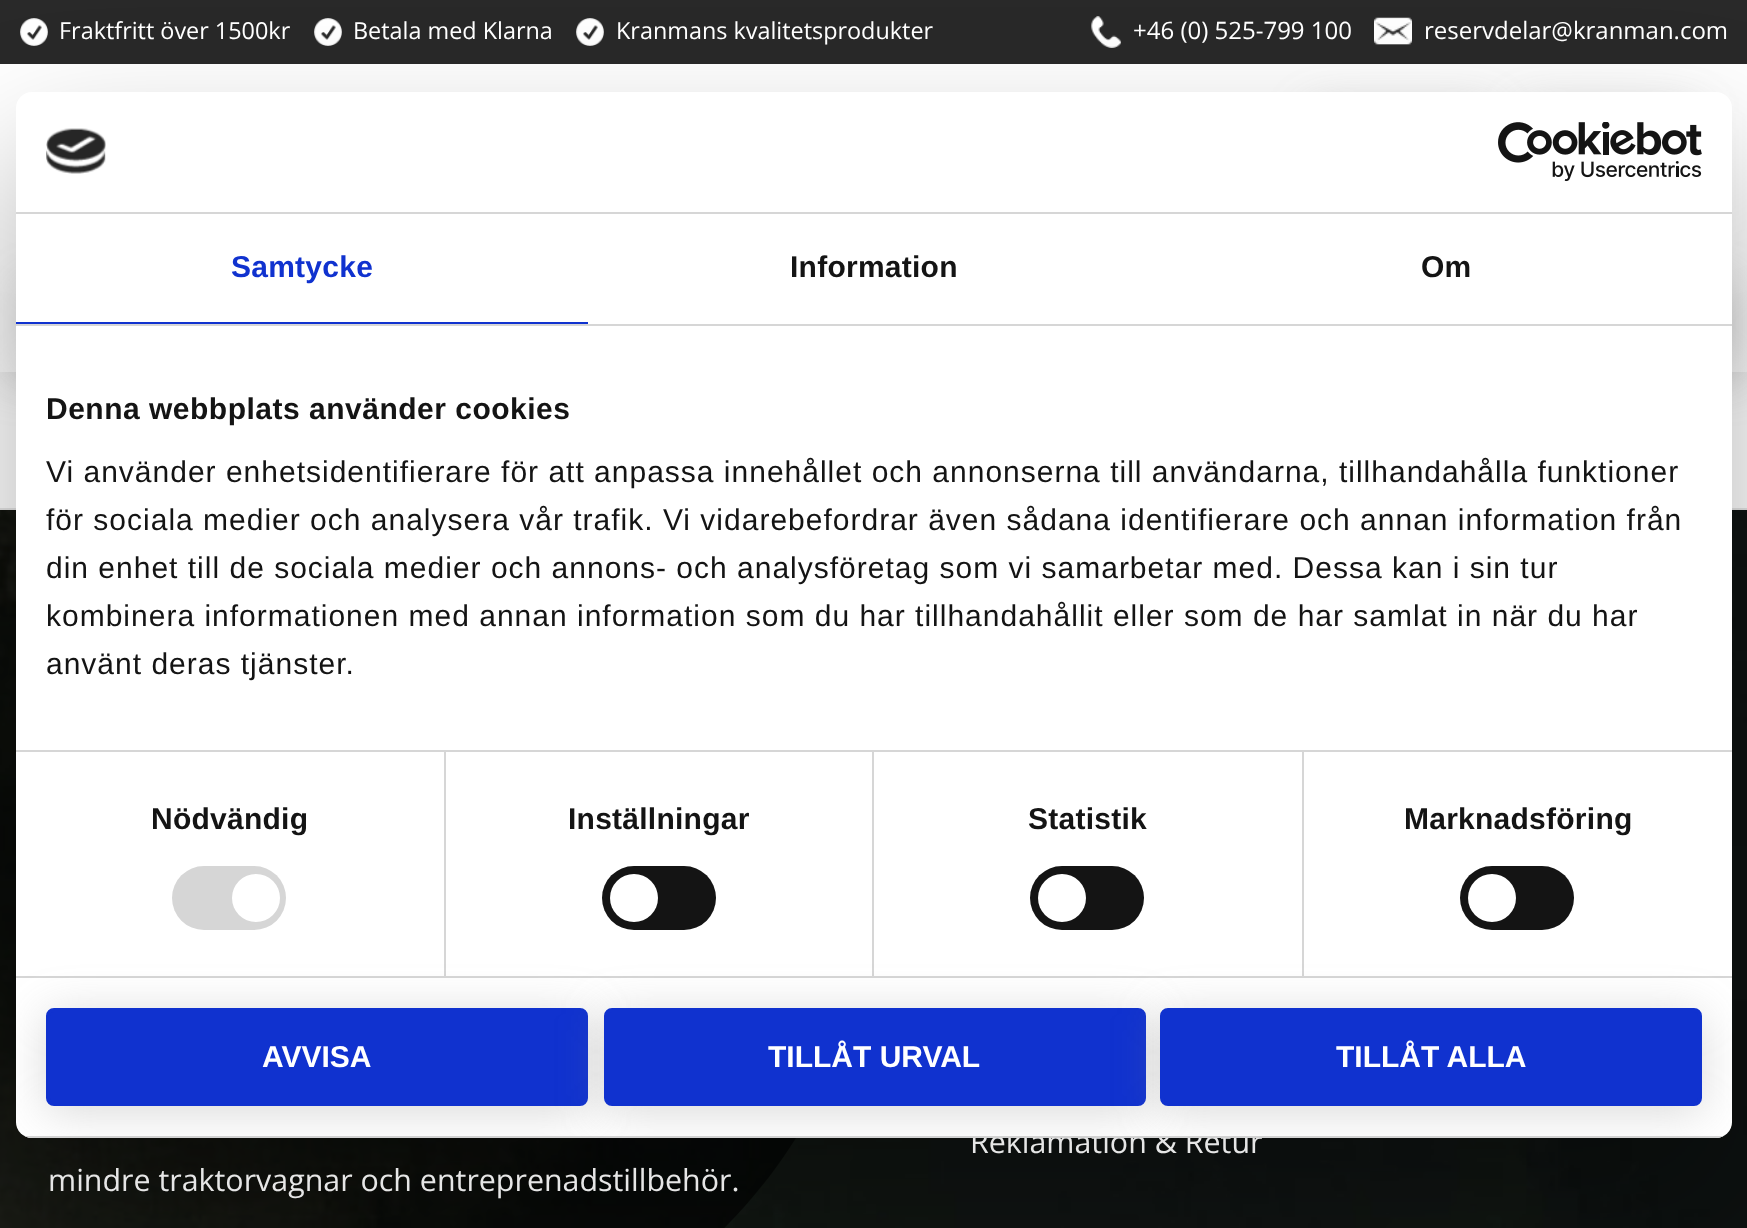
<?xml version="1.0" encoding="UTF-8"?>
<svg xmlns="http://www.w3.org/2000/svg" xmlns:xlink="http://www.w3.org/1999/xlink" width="1747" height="1228">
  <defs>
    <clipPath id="clip1"><rect x="16" y="92" width="1716" height="1046" rx="16" /></clipPath>
    <clipPath id="clip2"><rect x="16" y="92" width="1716" height="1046" rx="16" /></clipPath>
  </defs>
  <rect width="100%" height="100%" fill="#ffffff" />
  <rect y="6" width="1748" height="372" fill="#808080" fill-opacity="0.3" filter="blur(23px)" />
  <rect y="64" width="1747" height="308" fill="#ffffff" />
  <rect width="1747" height="64" fill="#292929" />
  <image x="20" y="18" width="28" height="28" xlink:href="image1.png" />
  <image x="314" y="18" width="28" height="28" xlink:href="image2.png" />
  <image x="576" y="18" width="28" height="28" xlink:href="image2.png" />
  <image x="1091" y="16" width="30" height="32" xlink:href="image3.png" />
  <image x="1374" y="17" width="38" height="28" xlink:href="image4.png" />
  <image x="20" y="96" width="2" height="2" xlink:href="image5.png" />
  <rect x="1310" y="112" width="180" height="120" rx="6" fill="#808080" fill-opacity="0.3" filter="blur(23px)" />
  <rect x="1522" y="112" width="174" height="120" rx="6" fill="#808080" fill-opacity="0.3" filter="blur(23px)" />
  <rect x="122" y="286" width="1606" height="76" fill="#808080" fill-opacity="0.4" filter="blur(23px)" />
  <rect x="20" y="284" width="80" height="80" rx="6" fill="#808080" fill-opacity="0.2" filter="blur(23px)" />
  <rect y="508" width="1747" height="2" fill="#e6e6e6" />
  <image x="0" y="510" width="1747" height="718" xlink:href="image6.png" />
  <path d="M 0 510 h 874 v 356 c 0 283 -229 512 -512 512 h -362 z" fill="#000000" fill-opacity="0.6" />
  <rect x="16" y="156" width="1716" height="1046" rx="16" fill="#000000" fill-opacity="0.3" filter="blur(68px)" />
  <text x="59" y="39" style="font-family: Open Sans; font-size: 23.4px; fill: #ffffff">Fraktfritt över 1500kr</text>
  <text x="353" y="39" style="font-family: Open Sans; font-size: 23.4px; fill: #ffffff">Betala med Klarna</text>
  <text x="616" y="39" style="font-family: Open Sans; font-size: 23.4px; fill: #ffffff">Kranmans kvalitetsprodukter</text>
  <text x="1133" y="39" style="font-family: Open Sans; font-size: 24px; fill: #ffffff">+46 (0) 525-799 100</text>
  <text x="1424" y="39" style="font-family: Open Sans; font-size: 24px; fill: #ffffff">reservdelar@kranman.com</text>
  <text x="970" y="1153" style="font-family: Open Sans; font-size: 30.4px; fill: #e6e6e6">Reklamation &amp; Retur</text>
  <text x="48" y="1191" style="font-family: Open Sans; font-size: 30.4px; fill: #e6e6e6">mindre traktorvagnar och entreprenadstillbehör.</text>
  <rect x="16" y="92" width="1716" height="1046" rx="16" fill="#ffffff" />
  <rect x="16" y="212" width="1716" height="2" fill="#d6d6d6" />
  <image x="46" y="128" width="60" height="46" xlink:href="image7.png" />
  <image x="1498" y="122" width="204" height="60" xlink:href="image8.png" />
  <rect x="16" y="324" width="1716" height="2" fill="#d6d6d6" />
  <rect x="16" y="322" width="572" height="2" fill="#1032cf" />
  <text x="231" y="277" style="font-family: Liberation Sans; font-size: 30px; font-weight: bold; letter-spacing: 0.25px; fill: #1032cf">Samtycke</text>
  <text x="790" y="277" style="font-family: Liberation Sans; font-size: 30px; font-weight: bold; letter-spacing: 0.25px; fill: #141414">Information</text>
  <text x="1421" y="277" style="font-family: Liberation Sans; font-size: 30px; font-weight: bold; letter-spacing: 0.25px; fill: #141414">Om</text>
  <rect x="16" y="750" width="1716" height="2" fill="#d6d6d6" />
  <text x="46" y="419" style="font-family: Liberation Sans; font-size: 30px; font-weight: bold; letter-spacing: 0.5px; fill: #141414">Denna webbplats använder cookies</text>
  <text x="46" y="482" style="font-family: Liberation Sans; font-size: 30px; letter-spacing: 1px; fill: #141414">Vi använder enhetsidentifierare för att anpassa innehållet och annonserna till användarna, tillhandahålla funktioner</text>
  <text x="46" y="530" style="font-family: Liberation Sans; font-size: 30px; letter-spacing: 1px; fill: #141414">för sociala medier och analysera vår trafik. Vi vidarebefordrar även sådana identifierare och annan information från</text>
  <text x="46" y="578" style="font-family: Liberation Sans; font-size: 30px; letter-spacing: 1px; fill: #141414">din enhet till de sociala medier och annons- och analysföretag som vi samarbetar med. Dessa kan i sin tur</text>
  <text x="46" y="626" style="font-family: Liberation Sans; font-size: 30px; letter-spacing: 1px; fill: #141414">kombinera informationen med annan information som du har tillhandahållit eller som de har samlat in när du har</text>
  <text x="46" y="674" style="font-family: Liberation Sans; font-size: 30px; letter-spacing: 1px; fill: #141414">använt deras tjänster.</text>
  <rect x="16" y="976" width="1716" height="2" fill="#d6d6d6" />
  <rect x="444" y="752" width="2" height="224" fill="#d6d6d6" />
  <text x="151" y="829" style="font-family: Liberation Sans; font-size: 30px; font-weight: bold; letter-spacing: 0.25px; fill: #141414">Nödvändig</text>
  <rect x="172" y="866" width="114" height="64" rx="32" fill="#d6d6d6" />
  <circle cx="256" cy="898" r="24" fill="#ffffff" />
  <rect x="872" y="752" width="2" height="224" fill="#d6d6d6" />
  <text x="568" y="829" style="font-family: Liberation Sans; font-size: 30px; font-weight: bold; letter-spacing: 0.25px; fill: #141414">Inställningar</text>
  <rect x="602" y="866" width="114" height="64" rx="32" fill="#141414" />
  <circle cx="634" cy="898" r="24" fill="#ffffff" />
  <rect x="1302" y="752" width="2" height="224" fill="#d6d6d6" />
  <text x="1028" y="829" style="font-family: Liberation Sans; font-size: 30px; font-weight: bold; letter-spacing: 0.25px; fill: #141414">Statistik</text>
  <rect x="1030" y="866" width="114" height="64" rx="32" fill="#141414" />
  <circle cx="1062" cy="898" r="24" fill="#ffffff" />
  <text x="1404" y="829" style="font-family: Liberation Sans; font-size: 30px; font-weight: bold; letter-spacing: 0.25px; fill: #141414">Marknadsföring</text>
  <rect x="1460" y="866" width="114" height="64" rx="32" fill="#141414" />
  <circle cx="1492" cy="898" r="24" fill="#ffffff" />
  <g clip-path="url(#clip1)">
    <rect x="16" y="1136" width="1716" height="2" fill="#d6d6d6" />
  </g>
  <g clip-path="url(#clip2)">
    <rect x="46" y="1014" width="542" height="98" rx="8" fill="#808080" fill-opacity="0.3" filter="blur(23px)" />
  </g>
  <rect x="48" y="1010" width="538" height="94" rx="6" fill="#1032cf" stroke="#1032cf" stroke-width="4" />
  <text x="262" y="1067" style="font-family: Liberation Sans; font-size: 30px; font-weight: bold; fill: #ffffff">AVVISA</text>
  <g clip-path="url(#clip2)">
    <rect x="604" y="1014" width="542" height="98" rx="8" fill="#808080" fill-opacity="0.3" filter="blur(23px)" />
  </g>
  <rect x="606" y="1010" width="538" height="94" rx="6" fill="#1032cf" stroke="#1032cf" stroke-width="4" />
  <text x="768" y="1067" style="font-family: Liberation Sans; font-size: 30px; font-weight: bold; fill: #ffffff">TILLÅT URVAL</text>
  <g clip-path="url(#clip2)">
    <rect x="1160" y="1014" width="542" height="98" rx="8" fill="#808080" fill-opacity="0.3" filter="blur(23px)" />
  </g>
  <rect x="1162" y="1010" width="538" height="94" rx="6" fill="#1032cf" stroke="#1032cf" stroke-width="4" />
  <text x="1336" y="1067" style="font-family: Liberation Sans; font-size: 30px; font-weight: bold; fill: #ffffff">TILLÅT ALLA</text>
</svg>
